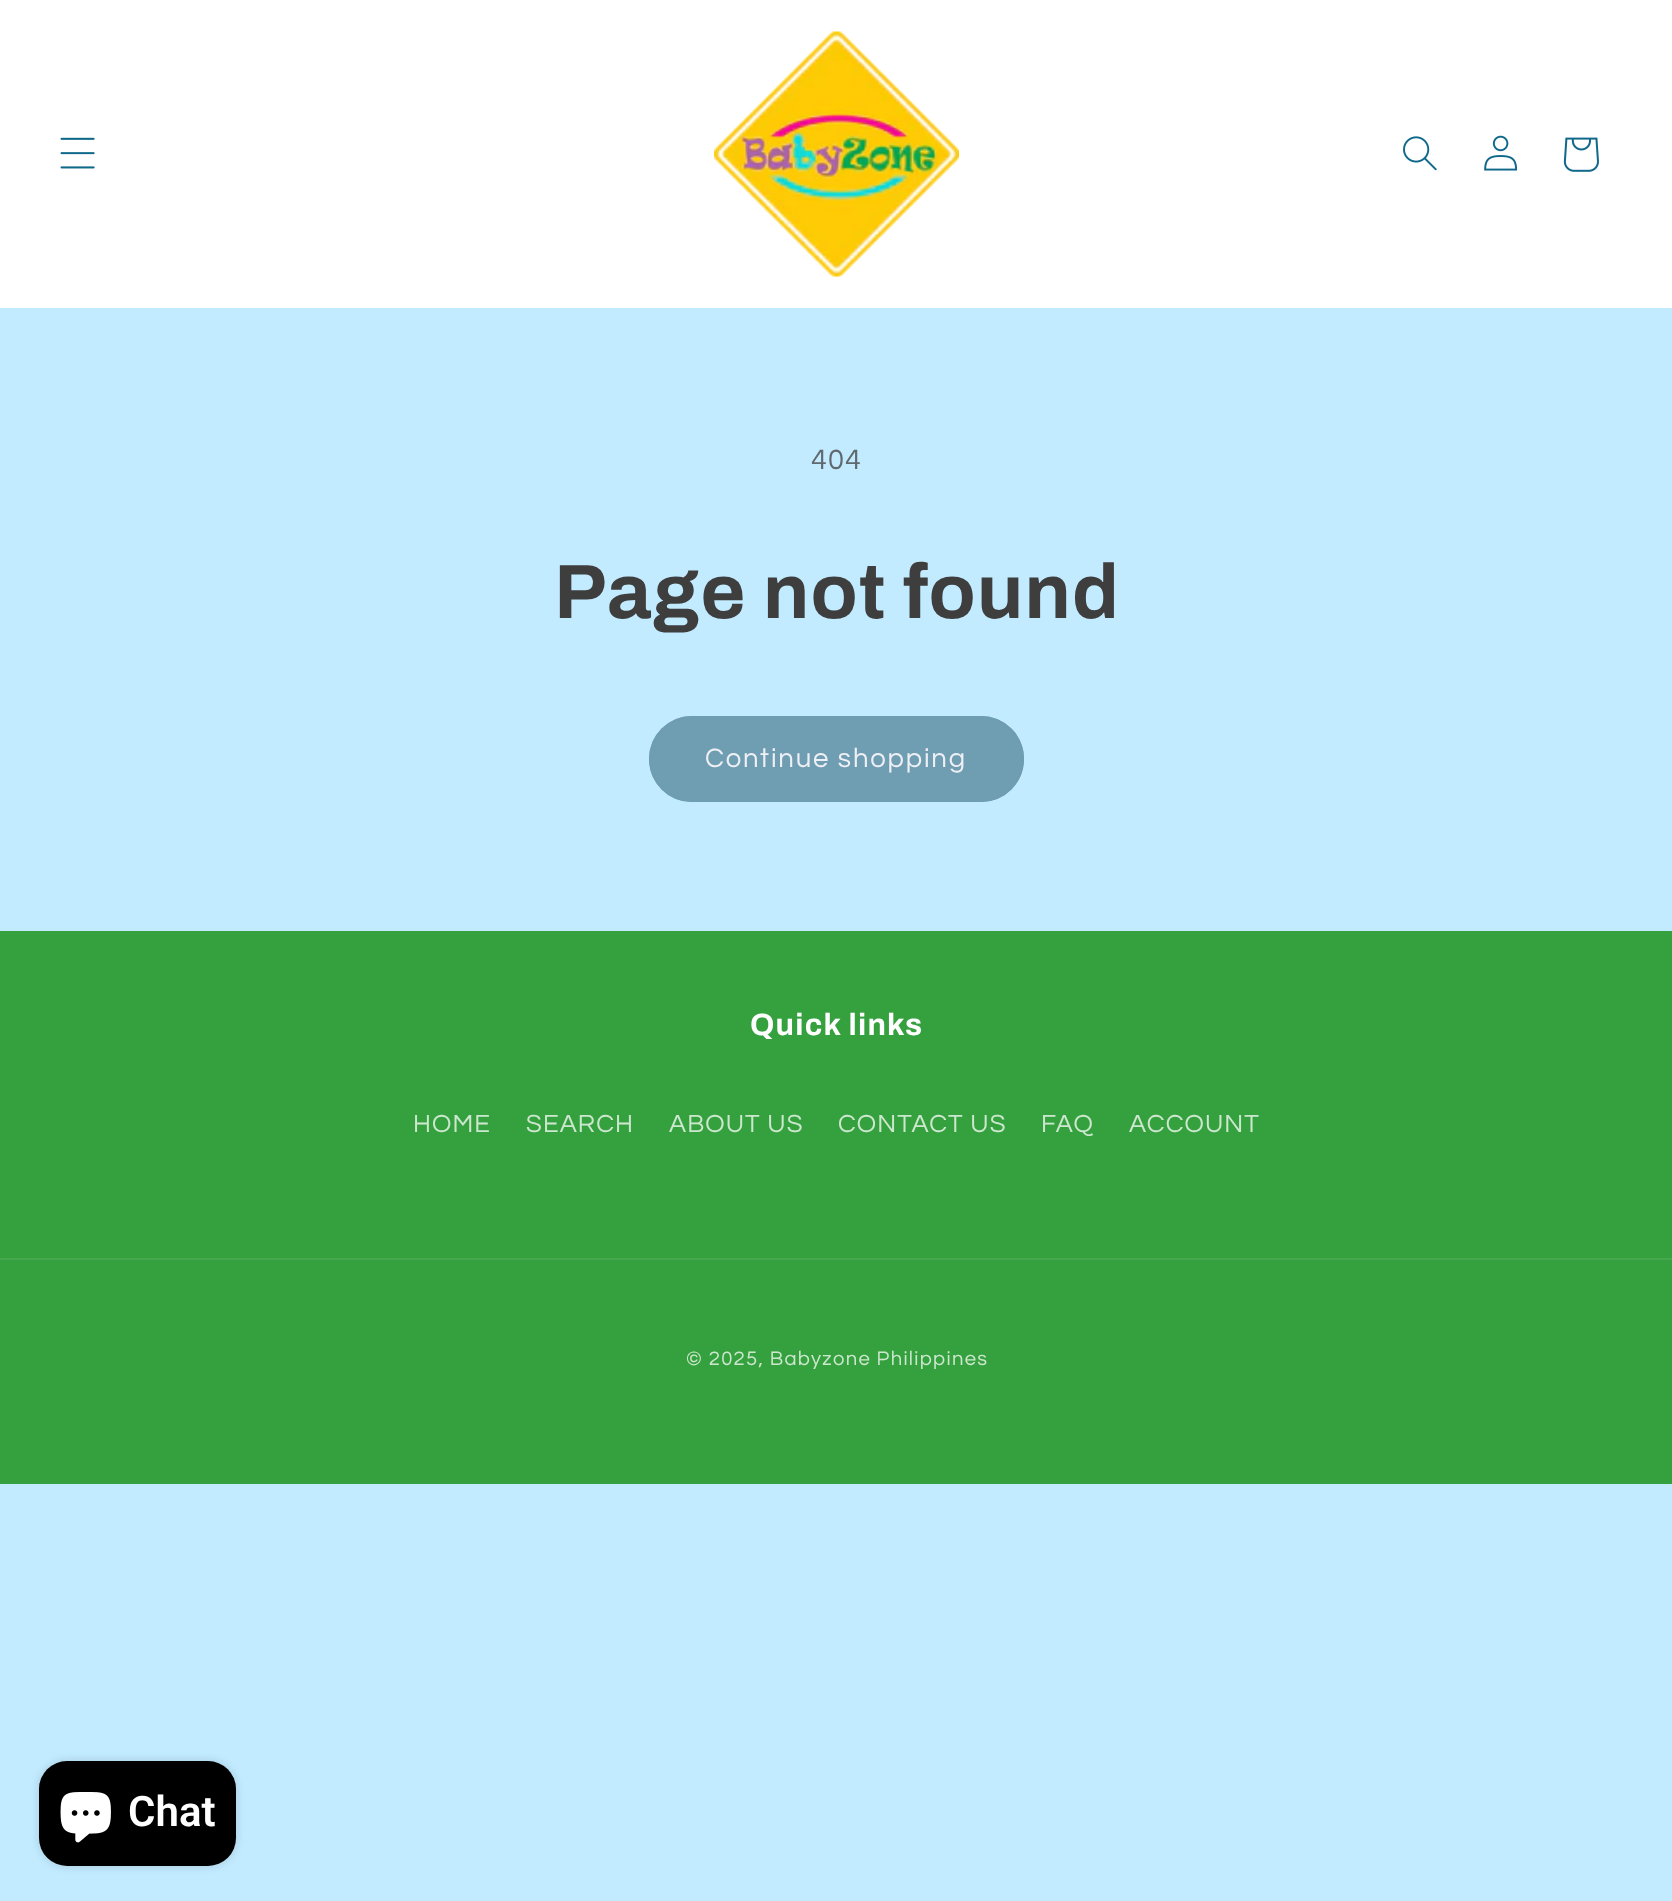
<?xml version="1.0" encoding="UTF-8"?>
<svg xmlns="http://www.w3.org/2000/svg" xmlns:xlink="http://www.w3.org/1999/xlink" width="1672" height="1901">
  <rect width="100%" height="100%" fill="#c2ebff" />
  <rect width="1672" height="308" fill="#ffffff" />
  <image x="60" y="137" width="35" height="32" xlink:href="image1.png" />
  <image x="714" y="31" width="245" height="246" xlink:href="image2.png" />
  <image x="1403" y="136" width="34" height="35" xlink:href="image3.png" />
  <image x="1484" y="135" width="34" height="36" xlink:href="image4.png" />
  <image x="1563" y="137" width="36" height="35" xlink:href="image5.png" />
  <rect x="649" y="716" width="375" height="86" rx="43" fill="#6f9db2" />
  <rect x="650" y="717" width="373" height="84" rx="42" fill="none" stroke="#6f9db2" stroke-width="2" />
  <rect y="931" width="1672" height="553" fill="#35a03e" />
  <rect y="1258" width="1672" height="2" fill="#45a84d" />
  <rect x="39" y="1761" width="197" height="105" rx="28" fill="#000000" fill-opacity="0.15" filter="blur(4.5px)" />
  <rect x="39" y="1761" width="197" height="105" rx="28" fill="#000000" />
  <image x="60" y="1792" width="51" height="51" xlink:href="image6.png" />
  <text x="811" y="469" style="font-family: Questrial; font-size: 29px; letter-spacing: 1.1px; fill: #5f696e">404</text>
  <text x="554" y="618" style="font-family: Archivo; font-size: 77px; font-weight: bold; letter-spacing: 1.2px; fill: #3e3e3e">Page not found</text>
  <text x="705" y="767" style="font-family: Questrial; font-size: 27.5px; letter-spacing: 1.8px; fill: #eff0f5">Continue shopping</text>
  <text x="750" y="1035" style="font-family: Archivo; font-size: 30.75px; font-weight: bold; letter-spacing: 1.2px; fill: #ffffff">Quick links</text>
  <text x="413" y="1132" style="font-family: Questrial; font-size: 25.75px; letter-spacing: 1.1px; fill: #cde7cf">HOME</text>
  <text x="526" y="1132" style="font-family: Questrial; font-size: 25.75px; letter-spacing: 1.1px; fill: #cde7cf">SEARCH</text>
  <text x="669" y="1132" style="font-family: Questrial; font-size: 25.75px; letter-spacing: 1.1px; fill: #cde7cf">ABOUT US</text>
  <text x="838" y="1132" style="font-family: Questrial; font-size: 25.75px; letter-spacing: 1.1px; fill: #cde7cf">CONTACT US</text>
  <text x="1041" y="1132" style="font-family: Questrial; font-size: 25.75px; letter-spacing: 1.1px; fill: #cde7cf">FAQ</text>
  <text x="1129" y="1132" style="font-family: Questrial; font-size: 25.75px; letter-spacing: 1.1px; fill: #cde7cf">ACCOUNT</text>
  <text x="686" y="1365" style="font-family: Questrial; font-size: 20.25px; letter-spacing: 1.3px; fill: #cde7cf">© 2025, Babyzone Philippines</text>
  <text x="128" y="1826" style="font-family: Roboto; font-size: 42px; font-weight: 600; fill: #ffffff">Chat</text>
</svg>
